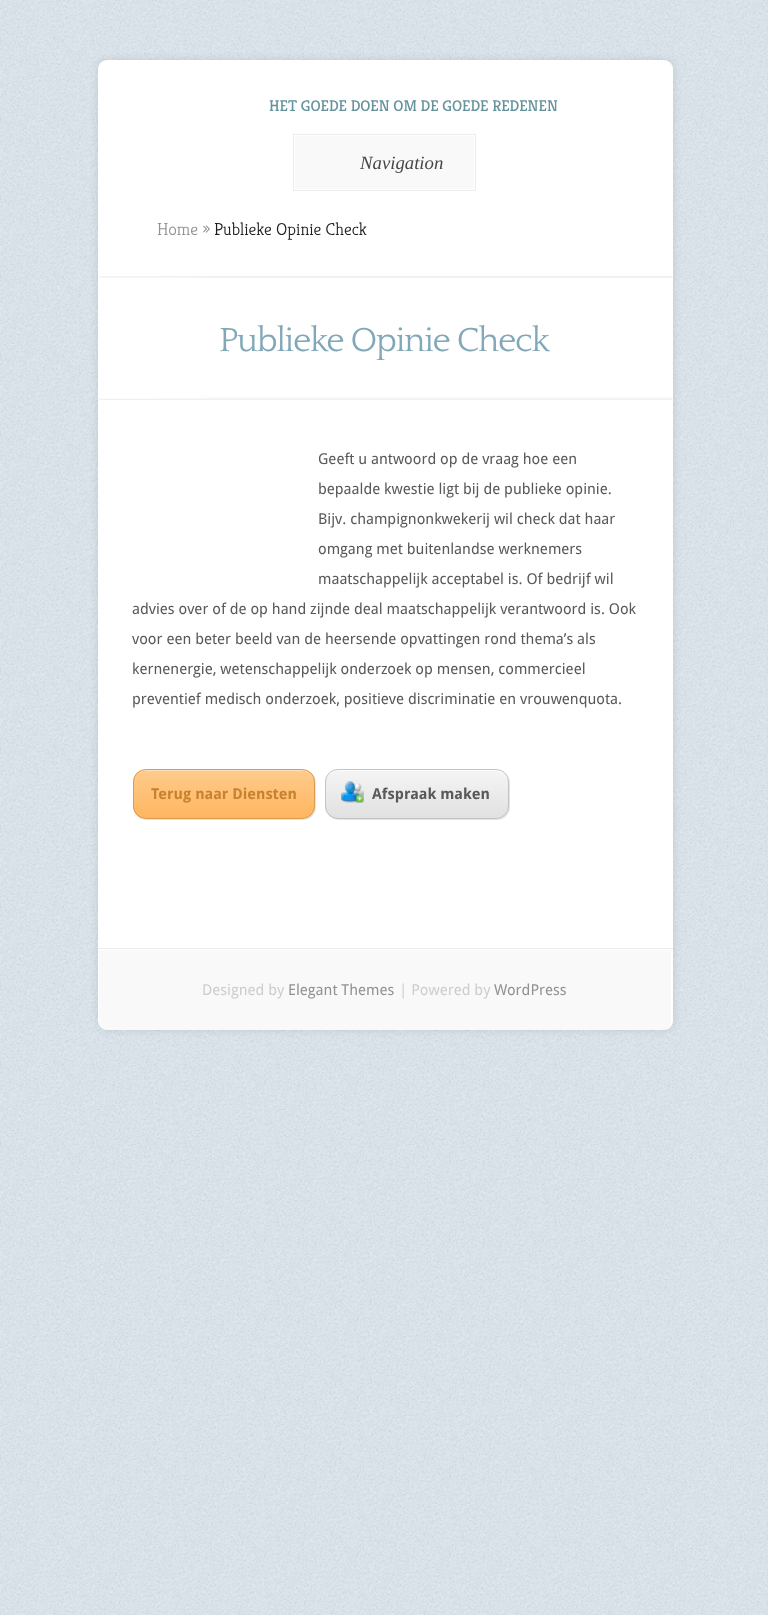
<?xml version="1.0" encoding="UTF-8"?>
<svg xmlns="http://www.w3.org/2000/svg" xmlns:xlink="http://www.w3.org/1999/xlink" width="768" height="1615">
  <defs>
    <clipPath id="clip1"><rect x="133" y="769" width="182" height="50" rx="13" /></clipPath>
    <linearGradient id="g1" gradientUnits="userSpaceOnUse" x1="224" y1="770" x2="224" y2="818"><stop offset="0" stop-color="#ffcb8c" /><stop offset="1" stop-color="#ffb660" /></linearGradient>
    <clipPath id="clip2"><rect x="325" y="769" width="184" height="50" rx="13" /></clipPath>
    <linearGradient id="g2" gradientUnits="userSpaceOnUse" x1="417" y1="770" x2="417" y2="818"><stop offset="0" stop-color="#f5f5f5" /><stop offset="1" stop-color="#e1e1e1" /></linearGradient>
  </defs>
  <rect width="100%" height="100%" fill="#dbe6ec" />
  <image x="0" y="0" width="768" height="1615" xlink:href="image1.png" />
  <rect x="98" y="60" width="575" height="970" rx="9" fill="#000000" fill-opacity="0.1" filter="blur(4px)" />
  <rect x="98" y="60" width="575" height="970" rx="9" fill="#ffffff" />
  <rect x="295" y="136" width="179" height="53" fill="#f9f9f9" />
  <rect x="293.5" y="134.5" width="182" height="56" fill="none" stroke="#ececec" />
  <image x="99" y="276" width="574" height="2" xlink:href="image2.png" />
  <image x="99" y="397" width="574" height="3" xlink:href="image3.png" />
  <rect x="134" y="770" width="182" height="50" rx="13" fill="#000000" fill-opacity="0.1" filter="blur(0.5px)" />
  <g clip-path="url(#clip1)">
    <rect x="133" y="770" width="182" height="48" fill="url(#g1)" />
  </g>
  <path d="M 145 771 h 157 c 7 0 12 5 12 11 v -1 c 0 -6 -5 -11 -11 -11 h -158 c -6 0 -11 5 -11 11 v 1 c 0 -6 5 -11 11 -11 z" fill="#ffffff" fill-opacity="0.4" />
  <rect x="133.5" y="769.5" width="181" height="49" rx="12.5" fill="none" stroke="#db9c51" />
  <rect x="326" y="770" width="184" height="50" rx="13" fill="#000000" fill-opacity="0.1" filter="blur(0.5px)" />
  <g clip-path="url(#clip2)">
    <rect x="325" y="770" width="184" height="48" fill="url(#g2)" />
  </g>
  <path d="M 338 771 h 158 c 6 0 12 5 12 11 v -1 c 0 -6 -5 -11 -11 -11 h -160 c -6 0 -11 5 -11 11 v 1 c 0 -6 5 -11 12 -11 z" fill="#ffffff" fill-opacity="0.9" />
  <rect x="325.5" y="769.5" width="183" height="49" rx="12.5" fill="none" stroke="#c3c3c3" />
  <image x="341" y="781" width="23" height="22" xlink:href="image4.png" />
  <rect x="98" y="948" width="575" height="1" fill="#ececec" />
  <path d="M 99 950 h 572 v 71 c 0 5 -4 9 -9 9 h -554 c -5 0 -9 -4 -9 -9 z" fill="#f9f9f9" />
  <text x="269" y="111" style="font-family: Kreon; font-size: 15.6px; fill: #66929c">HET GOEDE DOEN OM DE GOEDE REDENEN</text>
  <text x="360" y="169" style="font-family: Liberation Serif; font-size: 18.75px; font-style: italic; fill: #464646">Navigation</text>
  <text x="157" y="235" style="font-family: Kreon; font-size: 17.5px; font-weight: 300; fill: #929292">Home »</text>
  <text x="214" y="235" style="font-family: Kreon; font-size: 17.5px; font-weight: 300; fill: #1d1d1d">Publieke Opinie Check</text>
  <text x="219" y="351" style="font-family: Quattrocento; font-size: 35px; letter-spacing: -1.25px; fill: #81a8b8">Publieke Opinie Check</text>
  <text x="318" y="464" style="font-family: Droid Sans; font-size: 15px; fill: #58595b">Geeft u antwoord op de vraag hoe een</text>
  <text x="318" y="494" style="font-family: Droid Sans; font-size: 15px; fill: #58595b">bepaalde kwestie ligt bij de publieke opinie.</text>
  <text x="318" y="524" style="font-family: Droid Sans; font-size: 15px; fill: #58595b">Bijv. champignonkwekerij wil check dat haar</text>
  <text x="318" y="554" style="font-family: Droid Sans; font-size: 15px; fill: #58595b">omgang met buitenlandse werknemers</text>
  <text x="318" y="584" style="font-family: Droid Sans; font-size: 15px; fill: #58595b">maatschappelijk acceptabel is. Of bedrijf wil</text>
  <text x="132" y="614" style="font-family: Droid Sans; font-size: 15px; fill: #58595b">advies over of de op hand zijnde deal maatschappelijk verantwoord is. Ook</text>
  <text x="132" y="644" style="font-family: Droid Sans; font-size: 15px; fill: #58595b">voor een beter beeld van de heersende opvattingen rond thema’s als</text>
  <text x="132" y="674" style="font-family: Droid Sans; font-size: 15px; fill: #58595b">kernenergie, wetenschappelijk onderzoek op mensen, commercieel</text>
  <text x="132" y="704" style="font-family: Droid Sans; font-size: 15px; fill: #58595b">preventief medisch onderzoek, positieve discriminatie en vrouwenquota.</text>
  <text x="151" y="799" style="font-family: Droid Sans; font-size: 15px; font-weight: bold; fill: #c7822f">Terug naar Diensten</text>
  <text x="372" y="799" style="font-family: Droid Sans; font-size: 15px; font-weight: bold; fill: #58595b">Afspraak maken</text>
  <text x="202" y="995" style="font-family: Droid Sans; font-size: 15px; fill: #cdcdcd">Designed by</text>
  <text x="288" y="995" style="font-family: Droid Sans; font-size: 15px; fill: #929292">Elegant Themes</text>
  <text x="399" y="995" style="font-family: Droid Sans; font-size: 15px; fill: #cdcdcd">| Powered by</text>
  <text x="494" y="995" style="font-family: Droid Sans; font-size: 15px; fill: #929292">WordPress</text>
</svg>
